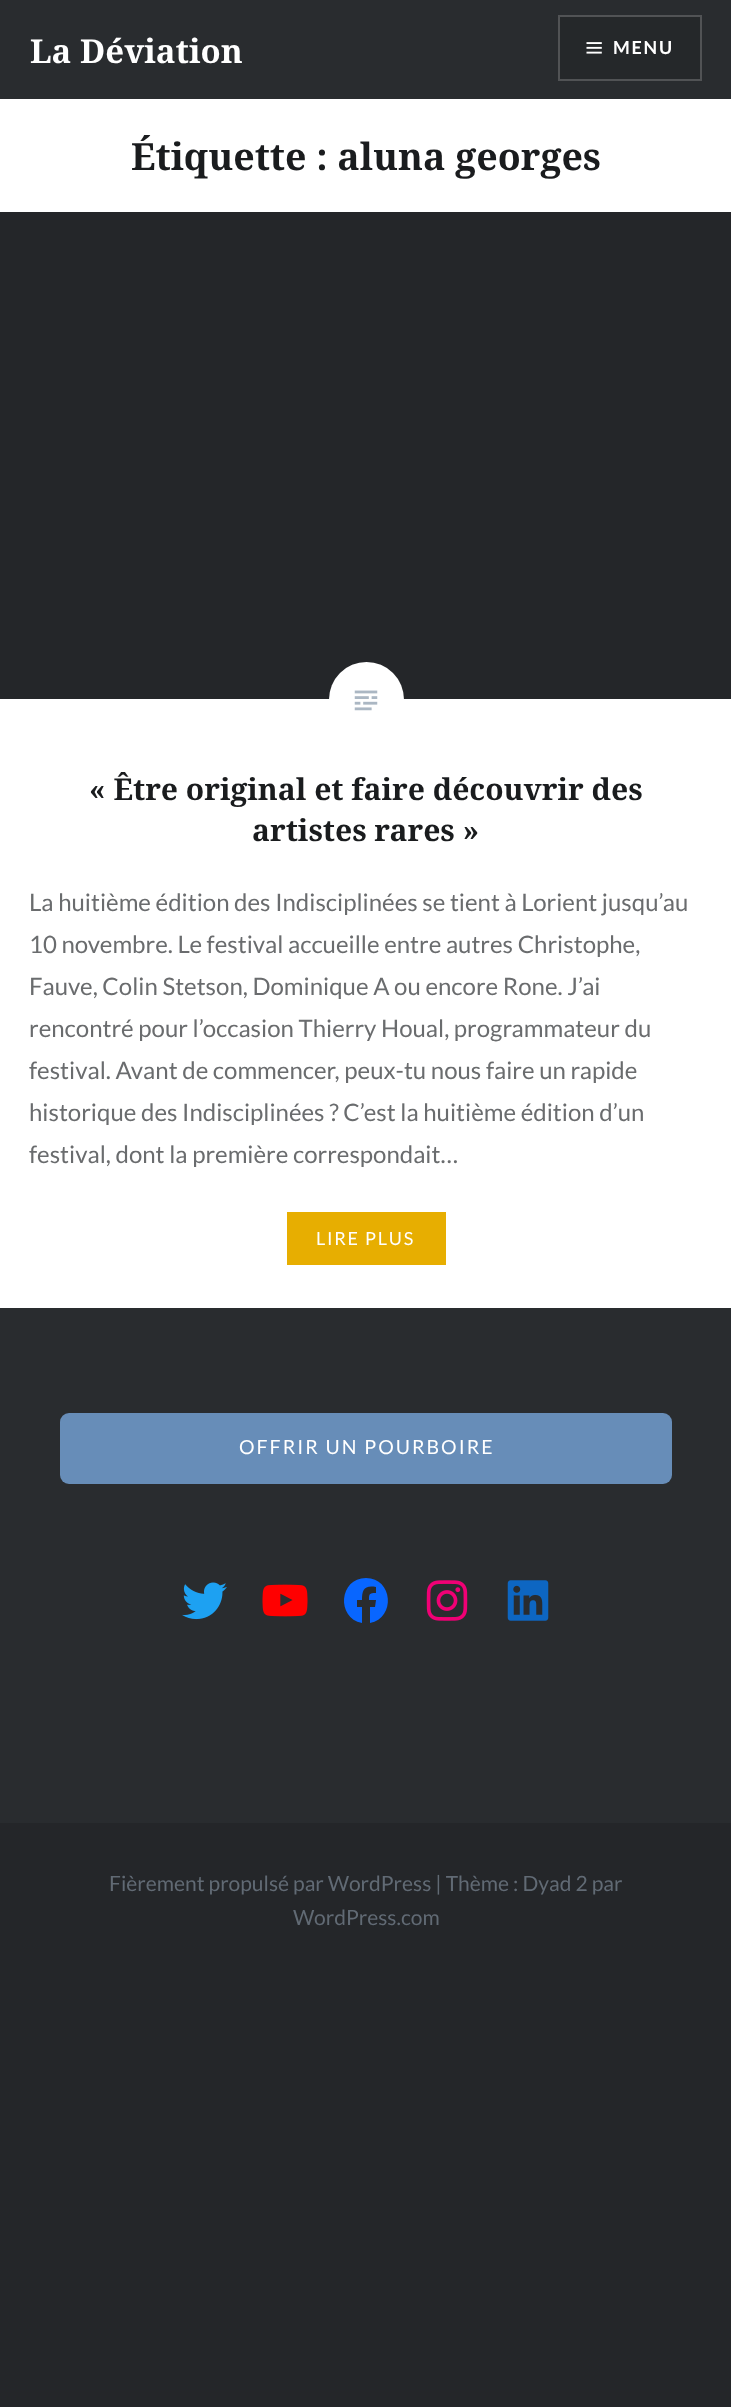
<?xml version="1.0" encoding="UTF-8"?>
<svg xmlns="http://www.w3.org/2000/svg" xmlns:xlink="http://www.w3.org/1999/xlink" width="731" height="2407">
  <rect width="100%" height="100%" fill="#242629" />
  <rect y="99" width="731" height="1209" fill="#ffffff" />
  <rect width="731" height="99" fill="#292c2f" />
  <rect x="559" y="16" width="142" height="64" fill="#25282a" stroke="#515355" stroke-width="2" />
  <image x="586" y="42" width="16" height="12" xlink:href="image1.png" />
  <rect y="212" width="731" height="487" fill="#242629" />
  <circle cx="366.5" cy="699.5" r="37.5" fill="#ffffff" />
  <image x="354" y="690" width="24" height="21" xlink:href="image2.png" />
  <rect x="287" y="1212" width="159" height="53" fill="#e7ae01" />
  <rect y="1308" width="731" height="515" fill="#292c2f" />
  <rect x="60" y="1413" width="612" height="71" rx="9" fill="#678db8" />
  <image x="182" y="1582" width="45" height="38" xlink:href="image3.png" />
  <image x="262" y="1584" width="46" height="33" xlink:href="image4.png" />
  <path d="M 366 1578 c -27 0 -30 40 -4 45 v -16 h -5 v -7 h 5 c 0 -10 2 -15 14 -13 v 6 c -7 0 -7 1 -7 7 h 7 l -1 7 h -5 v 16 c 26 -5 23 -45 -4 -45 z" fill="#0866ff" />
  <image x="426" y="1580" width="42" height="41" xlink:href="image5.png" />
  <image x="507" y="1580" width="42" height="41" xlink:href="image6.png" />
  <text x="30" y="63" style="font-family: Noto Serif; font-size: 33px; font-weight: bold; fill: #ffffff">La Déviation</text>
  <text x="613" y="54" style="font-family: Lato; font-size: 18px; font-weight: bold; letter-spacing: 1.75px; fill: #ffffff">MENU</text>
  <text x="131" y="170" style="font-family: Noto Serif; font-size: 37.5px; font-weight: bold; fill: #1a1c1e">Étiquette : aluna georges</text>
  <text x="89" y="800" style="font-family: Noto Serif; font-size: 30px; font-weight: bold; fill: #1a1c1e">« Être original et faire découvrir des</text>
  <text x="252" y="841" style="font-family: Noto Serif; font-size: 30px; font-weight: bold; fill: #1a1c1e">artistes rares »</text>
  <text x="29" y="911" style="font-family: Lato; font-size: 24px; fill: #6a6c6e">La huitième édition des Indisciplinées se tient à Lorient jusqu’au</text>
  <text x="29" y="953" style="font-family: Lato; font-size: 24px; fill: #6a6c6e">10 novembre. Le festival accueille entre autres Christophe,</text>
  <text x="29" y="995" style="font-family: Lato; font-size: 24px; fill: #6a6c6e">Fauve, Colin Stetson, Dominique A ou encore Rone. J’ai</text>
  <text x="29" y="1037" style="font-family: Lato; font-size: 24px; fill: #6a6c6e">rencontré pour l’occasion Thierry Houal, programmateur du</text>
  <text x="29" y="1079" style="font-family: Lato; font-size: 24px; fill: #6a6c6e">festival. Avant de commencer, peux-tu nous faire un rapide</text>
  <text x="29" y="1121" style="font-family: Lato; font-size: 24px; fill: #6a6c6e">historique des Indisciplinées ? C’est la huitième édition d’un</text>
  <text x="29" y="1163" style="font-family: Lato; font-size: 24px; fill: #6a6c6e">festival, dont la première correspondait…</text>
  <text x="316" y="1245" style="font-family: Lato; font-size: 18px; letter-spacing: 1.75px; fill: #ffffff">LIRE PLUS</text>
  <text x="239" y="1454" style="font-family: Lato; font-size: 19.5px; letter-spacing: 2px; fill: #ffffff">OFFRIR UN POURBOIRE</text>
  <text x="109" y="1891" style="font-family: Lato; font-size: 21px; fill: #616a74">Fièrement propulsé par WordPress | Thème : Dyad 2 par</text>
  <text x="293" y="1925" style="font-family: Lato; font-size: 21px; fill: #616a74">WordPress.com</text>
</svg>
